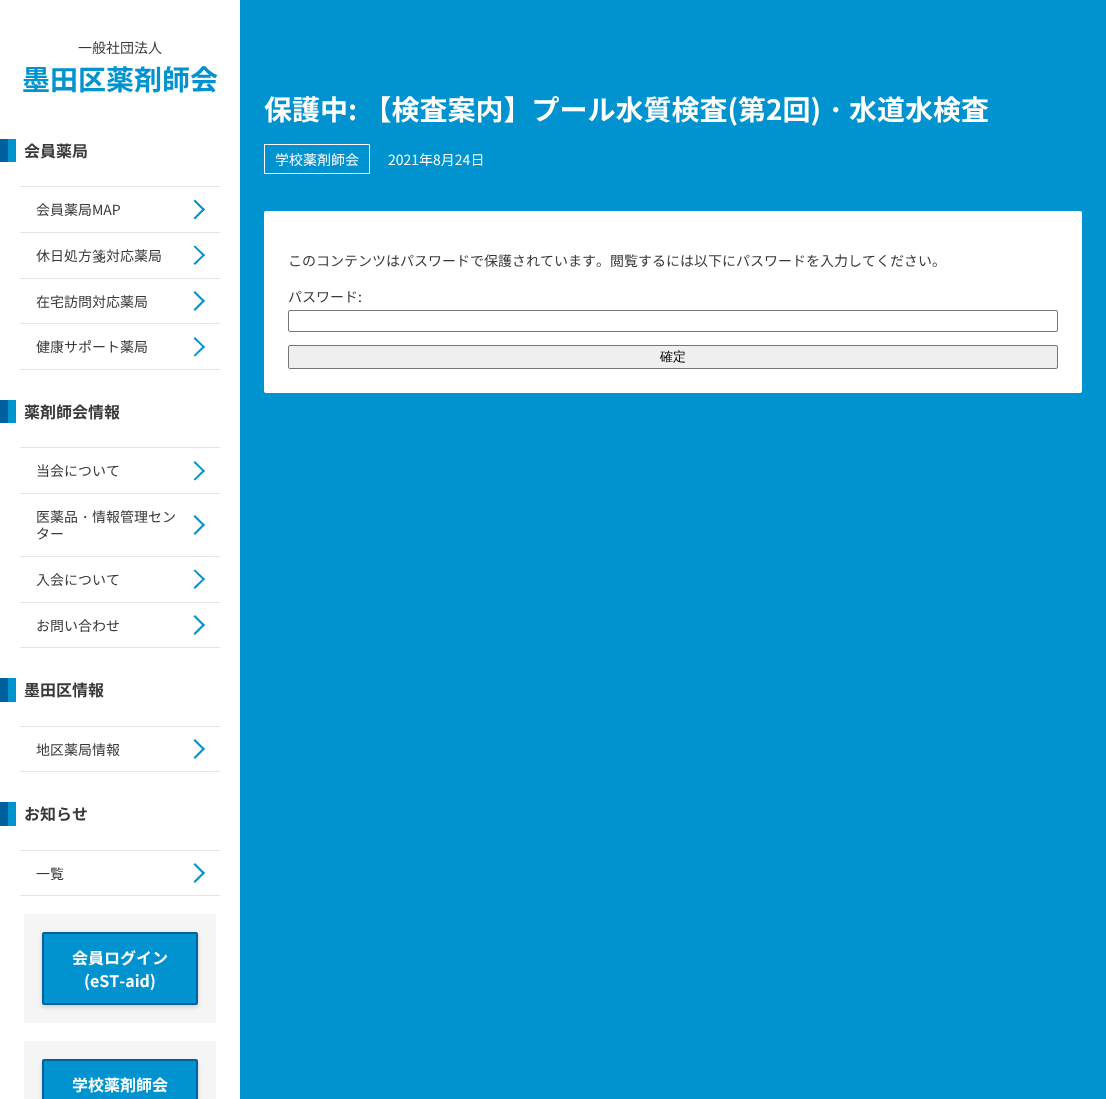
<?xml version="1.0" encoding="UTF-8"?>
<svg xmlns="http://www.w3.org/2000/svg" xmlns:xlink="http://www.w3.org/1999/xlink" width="1106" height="1099">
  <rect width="100%" height="100%" fill="#ffffff" />
  <rect x="8" y="139" width="8" height="23" fill="#0093d0" />
  <rect y="139" width="8" height="23" fill="#00619e" />
  <rect x="20" y="186" width="200" height="1" fill="#e3e3e3" />
  <rect x="20" y="232" width="200" height="1" fill="#e3e3e3" />
  <path d="M 195 199.5 l 10 10 l -1.5 1.5 l -10 -10 z" fill="#0093d0" />
  <path d="M 203.5 208 l 1.5 1.5 l -10 10 l -1.5 -1.5 z" fill="#0093d0" />
  <rect x="20" y="278" width="200" height="1" fill="#e3e3e3" />
  <path d="M 195 245.5 l 10 9.5 l -1.5 1.5 l -10 -10 z" fill="#0093d0" />
  <path d="M 203.5 254 l 1.5 1 l -10 10 l -1.5 -1.5 z" fill="#0093d0" />
  <rect x="20" y="323" width="200" height="1" fill="#e3e3e3" />
  <path d="M 195 291 l 10 10 l -1.5 1.5 l -10 -10 z" fill="#0093d0" />
  <path d="M 203.5 299.5 l 1.5 1.5 l -10 10 l -1.5 -1.5 z" fill="#0093d0" />
  <rect x="20" y="369" width="200" height="1" fill="#e3e3e3" />
  <path d="M 195 337 l 10 10 l -1.5 1 l -10 -9.5 z" fill="#0093d0" />
  <path d="M 203.5 345.5 l 1.5 1.5 l -10 9.5 l -1.5 -1 z" fill="#0093d0" />
  <rect x="8" y="400" width="8" height="23" fill="#0093d0" />
  <rect y="400" width="8" height="23" fill="#00619e" />
  <rect x="20" y="447" width="200" height="1" fill="#e3e3e3" />
  <rect x="20" y="493" width="200" height="1" fill="#e3e3e3" />
  <path d="M 195 461 l 10 10 l -1.5 1 l -10 -9.5 z" fill="#0093d0" />
  <path d="M 203.5 469.5 l 1.5 1.5 l -10 9.5 l -1.5 -1 z" fill="#0093d0" />
  <rect x="20" y="556" width="200" height="1" fill="#e3e3e3" />
  <path d="M 195 515 l 10 10 l -1.5 1.5 l -10 -10 z" fill="#0093d0" />
  <path d="M 203.5 523.5 l 1.5 1.5 l -10 10 l -1.5 -1.5 z" fill="#0093d0" />
  <rect x="20" y="602" width="200" height="1" fill="#e3e3e3" />
  <path d="M 195 569.5 l 10 9.5 l -1.5 1.5 l -10 -10 z" fill="#0093d0" />
  <path d="M 203.5 578 l 1.5 1 l -10 10 l -1.5 -1.5 z" fill="#0093d0" />
  <rect x="20" y="647" width="200" height="1" fill="#e3e3e3" />
  <path d="M 195 615 l 10 10 l -1.5 1.5 l -10 -10 z" fill="#0093d0" />
  <path d="M 203.5 623.5 l 1.5 1.5 l -10 10 l -1.5 -1.5 z" fill="#0093d0" />
  <rect x="8" y="678" width="8" height="24" fill="#0093d0" />
  <rect y="678" width="8" height="24" fill="#00619e" />
  <rect x="20" y="726" width="200" height="1" fill="#e3e3e3" />
  <rect x="20" y="771" width="200" height="1" fill="#e3e3e3" />
  <path d="M 195 739 l 10 10 l -1.5 1.5 l -10 -10 z" fill="#0093d0" />
  <path d="M 203.5 747.5 l 1.5 1.5 l -10 10 l -1.5 -1.5 z" fill="#0093d0" />
  <rect x="8" y="802" width="8" height="24" fill="#0093d0" />
  <rect y="802" width="8" height="24" fill="#00619e" />
  <rect x="20" y="850" width="200" height="1" fill="#e3e3e3" />
  <rect x="20" y="895" width="200" height="1" fill="#e3e3e3" />
  <path d="M 195 863 l 10 10 l -1.5 1.5 l -10 -10 z" fill="#0093d0" />
  <path d="M 203.5 871.5 l 1.5 1.5 l -10 10 l -1.5 -1.5 z" fill="#0093d0" />
  <rect x="24" y="914" width="192" height="109" fill="#f5f5f5" />
  <rect x="42" y="934" width="156" height="73" rx="2" fill="#000000" fill-opacity="0.16" filter="blur(2px)" />
  <rect x="43" y="933" width="154" height="71" rx="1" fill="#0093d0" stroke="#00619e" stroke-width="2" />
  <rect x="24" y="1041" width="192" height="58" fill="#f5f5f5" />
  <rect x="42" y="1061" width="156" height="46" rx="2" fill="#000000" fill-opacity="0.16" filter="blur(2px)" />
  <rect x="43" y="1060" width="154" height="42" rx="1" fill="#0093d0" stroke="#00619e" stroke-width="2" />
  <rect x="240" width="866" height="1099" fill="#0093d0" />
  <rect x="264.5" y="144.5" width="105" height="29" fill="none" stroke="#ffffff" />
  <rect x="264" y="211" width="818" height="182" rx="2" fill="#ffffff" />
  <rect x="288.5" y="310.5" width="769" height="21" rx="1.5" fill="none" stroke="#767676" />
  <rect x="288.5" y="345.5" width="769" height="23" rx="1.5" fill="#efefef" stroke="#767676" />
  <text x="78" y="53" style="font-family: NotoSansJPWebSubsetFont; font-size: 14px; fill: #383838">一般社団法人</text>
  <text x="22" y="90" style="font-family: NotoSansJPWebSubsetFont; font-size: 28px; font-weight: bold; fill: #0093d0">墨田区薬剤師会</text>
  <text x="24" y="157" style="font-family: NotoSansJPWebSubsetFont; font-size: 16px; font-weight: bold; fill: #383838">会員薬局</text>
  <text x="36" y="215" style="font-family: NotoSansJPWebSubsetFont; font-size: 14px; fill: #383838">会員薬局MAP</text>
  <text x="36" y="261" style="font-family: NotoSansJPWebSubsetFont; font-size: 14px; fill: #383838">休日処方</text>
  <text x="92" y="261" style="font-family: WenQuanYi Zen Hei; font-size: 14px; font-weight: 500; fill: #383838">箋</text>
  <text x="106" y="261" style="font-family: NotoSansJPWebSubsetFont; font-size: 14px; fill: #383838">対応薬局</text>
  <text x="36" y="307" style="font-family: NotoSansJPWebSubsetFont; font-size: 14px; fill: #383838">在宅訪問対応薬局</text>
  <text x="36" y="352" style="font-family: NotoSansJPWebSubsetFont; font-size: 14px; fill: #383838">健康サポート薬局</text>
  <text x="24" y="418" style="font-family: NotoSansJPWebSubsetFont; font-size: 16px; font-weight: bold; fill: #383838">薬剤師会情報</text>
  <text x="36" y="476" style="font-family: NotoSansJPWebSubsetFont; font-size: 14px; fill: #383838">当会について</text>
  <text x="36" y="522" style="font-family: NotoSansJPWebSubsetFont; font-size: 14px; fill: #383838">医薬品</text>
  <text x="78" y="522" style="font-family: WenQuanYi Zen Hei; font-size: 14px; font-weight: 500; fill: #383838">・</text>
  <text x="92" y="522" style="font-family: NotoSansJPWebSubsetFont; font-size: 14px; fill: #383838">情報管理セン</text>
  <text x="36" y="539" style="font-family: NotoSansJPWebSubsetFont; font-size: 14px; fill: #383838">ター</text>
  <text x="36" y="585" style="font-family: NotoSansJPWebSubsetFont; font-size: 14px; fill: #383838">入会について</text>
  <text x="36" y="631" style="font-family: NotoSansJPWebSubsetFont; font-size: 14px; fill: #383838">お問い合わせ</text>
  <text x="24" y="696" style="font-family: NotoSansJPWebSubsetFont; font-size: 16px; font-weight: bold; fill: #383838">墨田区情報</text>
  <text x="36" y="755" style="font-family: NotoSansJPWebSubsetFont; font-size: 14px; fill: #383838">地区薬局情報</text>
  <text x="24" y="820" style="font-family: NotoSansJPWebSubsetFont; font-size: 16px; font-weight: bold; fill: #383838">お知らせ</text>
  <text x="36" y="879" style="font-family: NotoSansJPWebSubsetFont; font-size: 14px; fill: #383838">一覧</text>
  <text x="72" y="964" style="font-family: NotoSansJPWebSubsetFont; font-size: 16px; font-weight: bold; fill: #ffffff">会員ログイン</text>
  <text x="84" y="987" style="font-family: NotoSansJPWebSubsetFont; font-size: 16px; font-weight: bold; fill: #ffffff">(eST-aid)</text>
  <text x="72" y="1091" style="font-family: NotoSansJPWebSubsetFont; font-size: 16px; font-weight: bold; fill: #ffffff">学校薬剤師会</text>
  <text x="264" y="120" style="font-family: NotoSansJPWebSubsetFont; font-size: 28px; font-weight: bold; fill: #ffffff">保護中: 【検査案内】プール水質検査(第2回)</text>
  <text x="821" y="120" style="font-family: WenQuanYi Zen Hei; font-size: 28px; font-weight: bold; fill: #ffffff">・</text>
  <text x="849" y="120" style="font-family: NotoSansJPWebSubsetFont; font-size: 28px; font-weight: bold; fill: #ffffff">水道水検査</text>
  <text x="275" y="165" style="font-family: NotoSansJPWebSubsetFont; font-size: 14px; fill: #ffffff">学校薬剤師会</text>
  <text x="388" y="165" style="font-family: NotoSansJPWebSubsetFont; font-size: 14px; fill: #ffffff">2021年8月24日</text>
  <text x="288" y="266" style="font-family: NotoSansJPWebSubsetFont; font-size: 14px; fill: #383838">このコンテンツはパスワードで保護されています。閲覧するには以下にパスワードを入力してください。</text>
  <text x="288" y="302" style="font-family: NotoSansJPWebSubsetFont; font-size: 14px; fill: #383838">パスワード:</text>
  <text x="660" y="361" style="font-family: WenQuanYi Zen Hei; font-size: 13px; font-weight: 500; fill: #000000">確定</text>
</svg>
